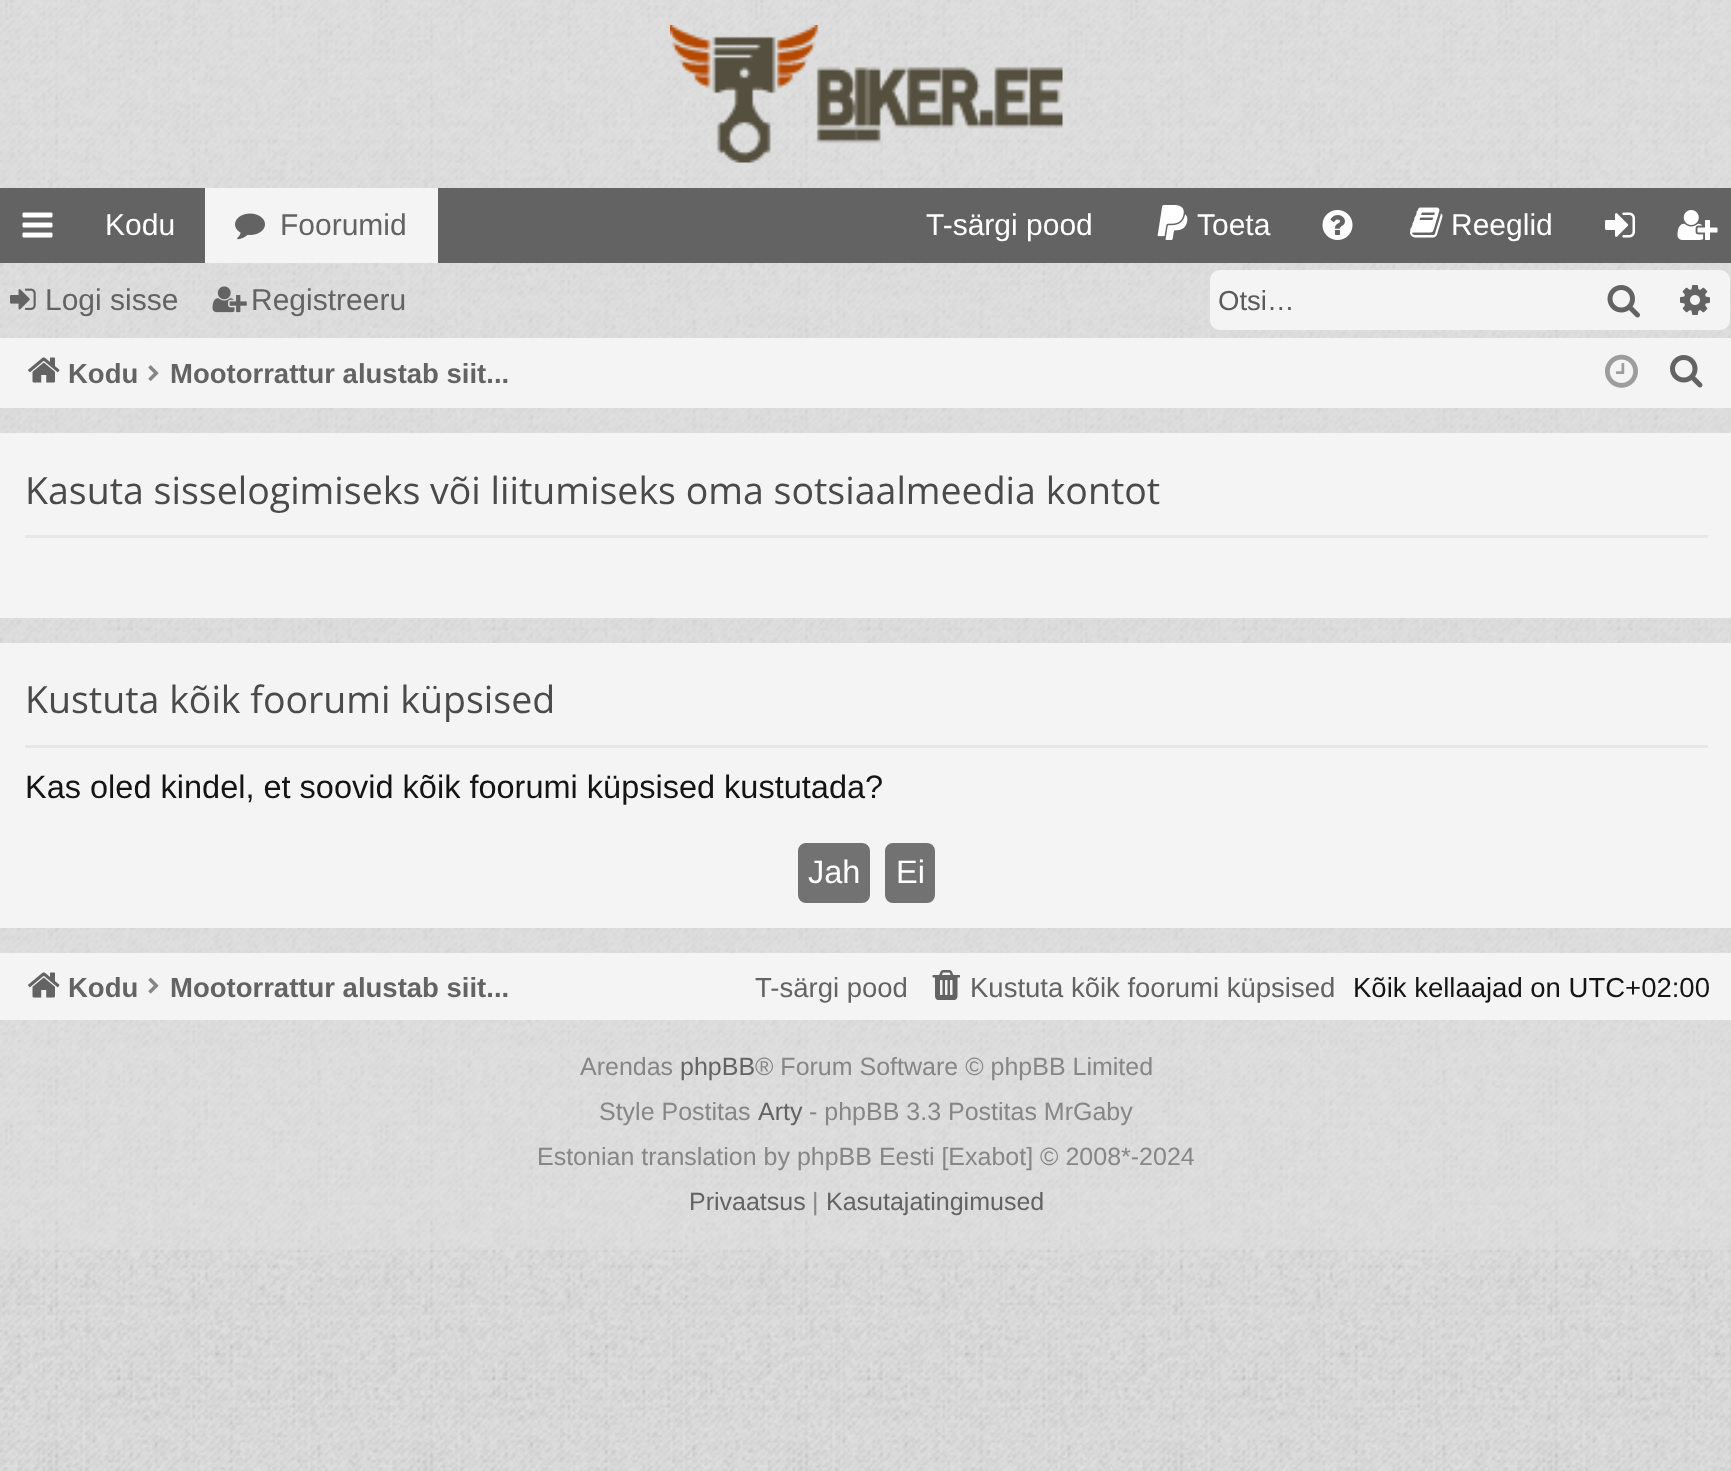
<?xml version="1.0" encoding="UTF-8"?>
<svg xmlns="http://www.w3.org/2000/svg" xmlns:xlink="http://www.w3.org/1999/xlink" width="1731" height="1471">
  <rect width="100%" height="100%" fill="#e0e0e0" />
  <image x="0" y="1250" width="1731" height="221" xlink:href="image1.png" />
  <image x="0" y="0" width="1731" height="1471" xlink:href="image2.png" />
  <image x="670" y="25" width="393" height="138" xlink:href="image3.png" />
  <rect y="188" width="1731" height="75" fill="#636363" />
  <image x="22" y="212" width="31" height="26" xlink:href="image4.png" />
  <rect x="205" y="188" width="233" height="75" fill="#f4f4f4" />
  <image x="235" y="213" width="30" height="27" xlink:href="image5.png" />
  <image x="1157" y="205" width="31" height="35" xlink:href="image6.png" />
  <image x="1322" y="210" width="31" height="30" xlink:href="image7.png" />
  <image x="1410" y="207" width="33" height="31" xlink:href="image8.png" />
  <image x="1605" y="212" width="30" height="26" xlink:href="image9.png" />
  <image x="1677" y="210" width="41" height="30" xlink:href="image10.png" />
  <image x="10" y="288" width="26" height="22" xlink:href="image11.png" />
  <image x="212" y="286" width="35" height="27" xlink:href="image12.png" />
  <path d="M 1220 270 h 365 v 60 h -365 c -5.5 0 -10 -4.5 -10 -10 v -40 c 0 -5.5 4.5 -10 10 -10 z" fill="#f4f4f4" />
  <rect x="1585" y="270" width="75" height="60" fill="#f4f4f4" />
  <image x="1607" y="285" width="33" height="33" xlink:href="image13.png" />
  <path d="M 1660 270 h 60 c 5.5 0 10 4.5 10 10 v 40 c 0 5.5 -4.5 10 -10 10 h -60 z" fill="#f4f4f4" />
  <image x="1680" y="285" width="30" height="30" xlink:href="image14.png" />
  <rect y="338" width="1731" height="70" fill="#f4f4f4" />
  <image x="28" y="357" width="32" height="26" xlink:href="image15.png" />
  <image x="148" y="365" width="11" height="16" xlink:href="image16.png" />
  <image x="1605" y="354" width="33" height="34" xlink:href="image17.png" />
  <image x="1670" y="355" width="33" height="33" xlink:href="image18.png" />
  <rect y="433" width="1731" height="185" fill="#f4f4f4" />
  <rect x="25" y="535" width="1683" height="3" fill="#e7e7e7" />
  <rect y="643" width="1731" height="285" fill="#f4f4f4" />
  <rect x="25" y="745" width="1683" height="3" fill="#e7e7e7" />
  <rect x="799.5" y="844.5" width="69" height="57" rx="6.5" fill="#727272" stroke="#727272" stroke-width="3" />
  <rect x="886.5" y="844.5" width="47" height="57" rx="6.5" fill="#727272" stroke="#727272" stroke-width="3" />
  <rect y="953" width="1731" height="67" fill="#f4f4f4" />
  <image x="28" y="972" width="32" height="26" xlink:href="image15.png" />
  <image x="148" y="977" width="11" height="17" xlink:href="image19.png" />
  <image x="932" y="970" width="28" height="30" xlink:href="image20.png" />
  <text x="105" y="235" style="font-family: Liberation Sans; font-size: 30px; fill: #ffffff">Kodu</text>
  <text x="280" y="235" style="font-family: Liberation Sans; font-size: 30px; fill: #636363">Foorumid</text>
  <text x="926" y="235" style="font-family: Liberation Sans; font-size: 30px; fill: #ffffff">T-särgi pood</text>
  <text x="1197" y="235" style="font-family: Liberation Sans; font-size: 30px; fill: #ffffff">Toeta</text>
  <text x="1451" y="235" style="font-family: Liberation Sans; font-size: 30px; fill: #ffffff">Reeglid</text>
  <text x="45" y="310" style="font-family: Liberation Sans; font-size: 30px; fill: #636363">Logi sisse</text>
  <text x="251" y="310" style="font-family: Liberation Sans; font-size: 30px; fill: #636363">Registreeru</text>
  <text x="1218" y="310" style="font-family: Liberation Sans; font-size: 27.5px; fill: #5b5b5b">Otsi…</text>
  <text x="68" y="383" style="font-family: Liberation Sans; font-size: 27.5px; font-weight: bold; fill: #636363">Kodu</text>
  <text x="170" y="383" style="font-family: Liberation Sans; font-size: 27.5px; font-weight: bold; fill: #636363">Mootorrattur alustab siit...</text>
  <text x="25" y="504" style="font-family: Open Sans; font-size: 37.5px; fill: #4a4a4a">Kasuta sisselogimiseks või liitumiseks oma sotsiaalmeedia kontot</text>
  <text x="25" y="713" style="font-family: Open Sans; font-size: 37.5px; fill: #4a4a4a">Kustuta kõik foorumi küpsised</text>
  <text x="25" y="798" style="font-family: Liberation Sans; font-size: 32.5px; fill: #141414">Kas oled kindel, et soovid kõik foorumi küpsised kustutada?</text>
  <text x="808" y="883" style="font-family: Liberation Sans; font-size: 32.5px; fill: #ffffff">Jah</text>
  <text x="896" y="883" style="font-family: Liberation Sans; font-size: 32.5px; fill: #ffffff">Ei</text>
  <text x="68" y="997" style="font-family: Liberation Sans; font-size: 27.5px; font-weight: bold; fill: #636363">Kodu</text>
  <text x="170" y="997" style="font-family: Liberation Sans; font-size: 27.5px; font-weight: bold; fill: #636363">Mootorrattur alustab siit...</text>
  <text x="755" y="997" style="font-family: Liberation Sans; font-size: 27.5px; fill: #636363">T-särgi pood</text>
  <text x="970" y="997" style="font-family: Liberation Sans; font-size: 27.5px; fill: #636363">Kustuta kõik foorumi küpsised</text>
  <text x="1353" y="997" style="font-family: Liberation Sans; font-size: 27.5px; fill: #141414">Kõik kellaajad on UTC+02:00</text>
  <text x="580" y="1075" style="font-family: Liberation Sans; font-size: 25px; fill: #868686">Arendas</text>
  <text x="680" y="1075" style="font-family: Liberation Sans; font-size: 25px; fill: #636363">phpBB</text>
  <text x="755" y="1075" style="font-family: Liberation Sans; font-size: 25px; fill: #868686">® Forum Software © phpBB Limited</text>
  <text x="599" y="1120" style="font-family: Liberation Sans; font-size: 25px; fill: #868686">Style Postitas</text>
  <text x="758" y="1120" style="font-family: Liberation Sans; font-size: 25px; fill: #636363">Arty</text>
  <text x="809" y="1120" style="font-family: Liberation Sans; font-size: 25px; fill: #868686">- phpBB 3.3 Postitas MrGaby</text>
  <text x="537" y="1165" style="font-family: Liberation Sans; font-size: 25px; fill: #868686">Estonian translation by phpBB Eesti [Exabot] © 2008*-2024</text>
  <text x="689" y="1210" style="font-family: Liberation Sans; font-size: 25px; fill: #636363">Privaatsus</text>
  <text x="812" y="1210" style="font-family: Liberation Sans; font-size: 25px; fill: #868686">|</text>
  <text x="826" y="1210" style="font-family: Liberation Sans; font-size: 25px; fill: #636363">Kasutajatingimused</text>
</svg>
